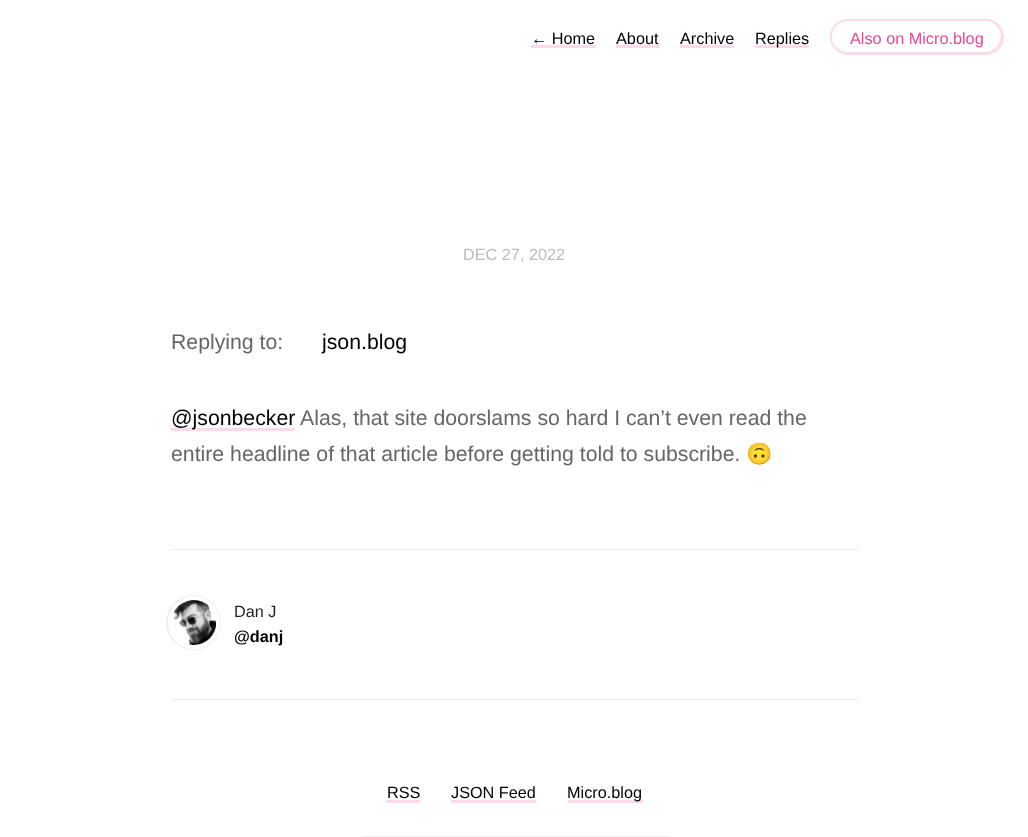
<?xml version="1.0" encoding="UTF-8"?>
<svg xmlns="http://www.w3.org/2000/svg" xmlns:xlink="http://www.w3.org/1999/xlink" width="1028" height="837">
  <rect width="100%" height="100%" fill="#ffffff" />
  <rect x="531" y="45" width="64" height="3" fill="#fcdae9" />
  <rect x="616" y="45" width="43" height="3" fill="#fcdae9" />
  <rect x="680" y="45" width="54" height="3" fill="#fcdae9" />
  <rect x="755" y="45" width="54" height="3" fill="#fcdae9" />
  <path d="M 833 39 c 1 9 7 16 15 16 h 138 c 8 0 15 -8 15 -18 v -3 c 0 10 -7 18 -15 18 h -138 c -7 0 -14 -5 -15 -13 z" fill="#fcdae9" />
  <path d="M 848 19 h 138 c 10 0 18 8 18 18 c 0 10 -8 18 -18 18 h -138 c -10 0 -18 -8 -18 -18 c 0 -10 8 -18 18 -18 z m 0 2 h 138 c 8 0 15 7 15 16 c 0 10 -7 18 -15 18 h -138 c -9 0 -16 -8 -16 -18 c 0 -9 7 -16 16 -16 z" fill="#fcdae9" fill-rule="evenodd" />
  <rect x="171" y="428" width="124" height="3" fill="#fcdae9" />
  <rect x="171" y="549" width="688" height="1" fill="#eeeeee" />
  <rect x="171" y="699" width="688" height="1" fill="#eeeeee" />
  <circle cx="193.5" cy="622.5" r="25" fill="none" stroke="#eeeeee" stroke-width="5" />
  <rect x="170" y="598" width="48" height="49" rx="24" fill="none" stroke="#ffffff" stroke-width="4" />
  <image x="173" y="600" width="44" height="45" xlink:href="image1.png" />
  <rect x="386" y="800" width="34" height="3" fill="#fcdae9" />
  <rect x="451" y="800" width="85" height="3" fill="#fcdae9" />
  <rect x="568" y="800" width="75" height="3" fill="#fcdae9" />
  <rect x="347.5" y="837.5" width="335" height="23" rx="20" fill="none" stroke="#eeeeee" stroke-width="3" />
  <text x="531" y="44" style="font-family: Liberation Sans; font-size: 16.25px; fill: #000000">← Home</text>
  <text x="616" y="44" style="font-family: Liberation Sans; font-size: 16.25px; fill: #000000">About</text>
  <text x="680" y="44" style="font-family: Liberation Sans; font-size: 16.25px; fill: #000000">Archive</text>
  <text x="755" y="44" style="font-family: Liberation Sans; font-size: 16.25px; fill: #000000">Replies</text>
  <text x="850" y="44" style="font-family: Liberation Sans; font-size: 16.25px; fill: #ee4792">Also on Micro.blog</text>
  <text x="463" y="260" style="font-family: Liberation Sans; font-size: 16.25px; fill: #bbbbbb">DEC 27, 2022</text>
  <text x="171" y="349" style="font-family: Liberation Sans; font-size: 21.25px; fill: #666666">Replying to:</text>
  <text x="322" y="349" style="font-family: Liberation Sans; font-size: 21.25px; fill: #000000">json.blog</text>
  <text x="171" y="425" style="font-family: Liberation Sans; font-size: 21.25px; fill: #000000">@jsonbecker</text>
  <text x="300" y="425" style="font-family: Liberation Sans; font-size: 21.25px; fill: #666666">Alas, that site doorslams so hard I can’t even read the</text>
  <text x="171" y="461" style="font-family: Liberation Sans; font-size: 21.25px; fill: #666666">entire headline of that article before getting told to subscribe.</text>
  <text x="746" y="461" style="font-family: Noto Color Emoji; font-size: 21.25px; fill: #666666">🙃</text>
  <text x="234" y="617" style="font-family: Liberation Sans; font-size: 16.25px; fill: #1e2025">Dan J</text>
  <text x="234" y="642" style="font-family: Liberation Sans; font-size: 16.25px; font-weight: bold; fill: #000000">@danj</text>
  <text x="387" y="798" style="font-family: Liberation Sans; font-size: 16.25px; fill: #000000">RSS</text>
  <text x="451" y="798" style="font-family: Liberation Sans; font-size: 16.25px; fill: #000000">JSON Feed</text>
  <text x="567" y="798" style="font-family: Liberation Sans; font-size: 16.25px; fill: #000000">Micro.blog</text>
</svg>
